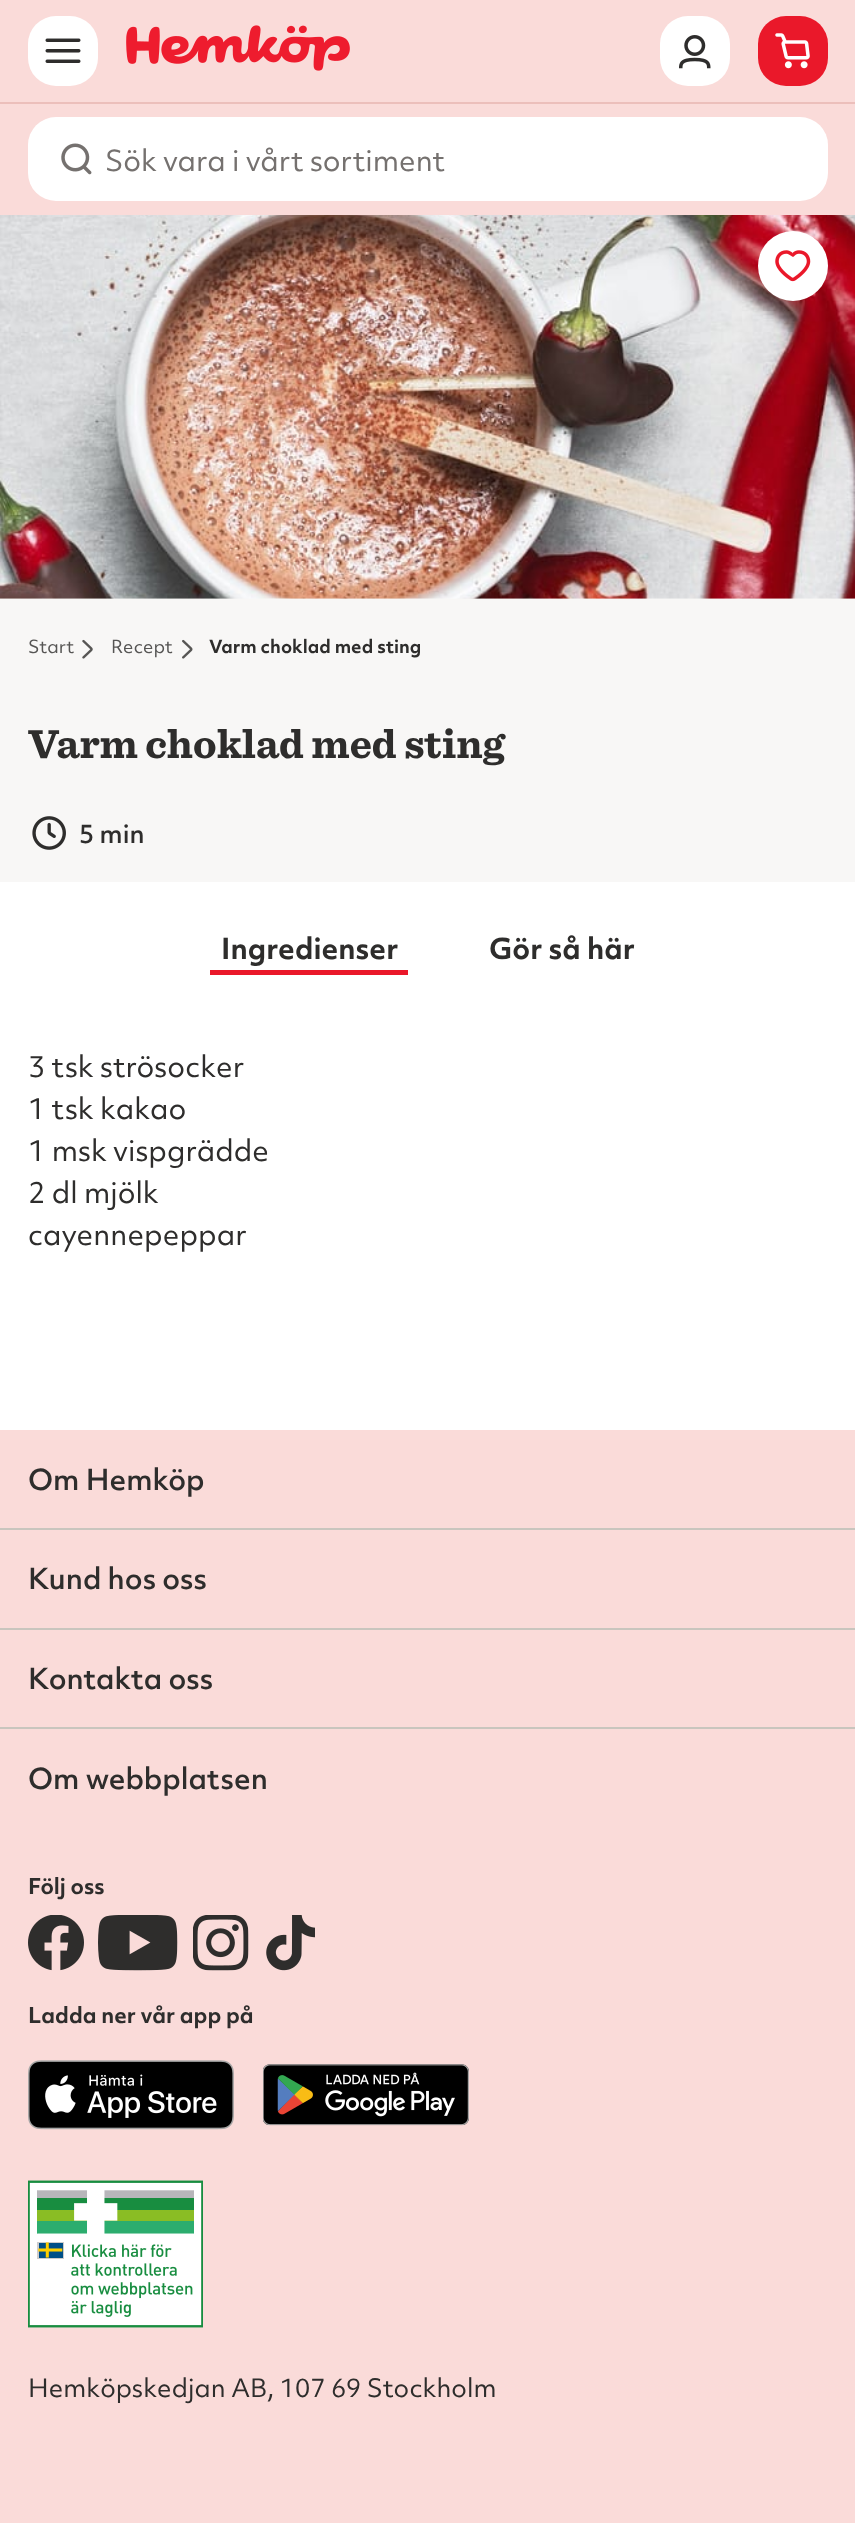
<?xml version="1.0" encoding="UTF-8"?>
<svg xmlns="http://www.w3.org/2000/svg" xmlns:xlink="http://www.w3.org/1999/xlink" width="855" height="2523">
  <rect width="100%" height="100%" fill="#ffffff" />
  <rect width="855" height="215" fill="#fadbd9" />
  <rect x="28" y="16" width="70" height="70" rx="28" fill="#ffffff" />
  <image x="45" y="38" width="36" height="25" xlink:href="image1.png" />
  <image x="126" y="25" width="224" height="46" xlink:href="image2.png" />
  <rect x="660" y="16" width="70" height="70" rx="28" fill="#ffffff" />
  <image x="679" y="35" width="32" height="34" xlink:href="image3.png" />
  <rect x="758" y="16" width="70" height="70" rx="28" fill="#ea182a" />
  <image x="775" y="33" width="35" height="36" xlink:href="image4.png" />
  <rect y="102" width="855" height="2" fill="#ecbfbb" />
  <rect x="28" y="117" width="800" height="84" rx="28" fill="#ffffff" />
  <image x="61" y="143" width="31" height="32" xlink:href="image5.png" />
  <rect y="598" width="855" height="284" fill="#f8f7f6" />
  <image x="0" y="215" width="855" height="384" xlink:href="image6.png" />
  <circle cx="793" cy="266" r="35" fill="#ffffff" />
  <image x="775" y="250" width="36" height="32" xlink:href="image7.png" />
  <image x="82" y="639" width="11" height="20" xlink:href="image8.png" />
  <image x="182" y="639" width="11" height="20" xlink:href="image9.png" />
  <image x="32" y="816" width="34" height="34" xlink:href="image10.png" />
  <rect x="210" y="970" width="198" height="5" fill="#ea182a" />
  <rect y="1430" width="855" height="1093" fill="#fadbd9" />
  <rect y="1528" width="855" height="2" fill="#c9c5be" />
  <rect y="1628" width="855" height="2" fill="#c9c5be" />
  <rect y="1727" width="855" height="2" fill="#c9c5be" />
  <image x="28" y="1915" width="56" height="56" xlink:href="image11.png" />
  <image x="98" y="1915" width="80" height="56" xlink:href="image12.png" />
  <image x="193" y="1915" width="56" height="56" xlink:href="image13.png" />
  <image x="266" y="1915" width="49" height="56" xlink:href="image14.png" />
  <image x="28" y="2060" width="206" height="70" xlink:href="image15.png" />
  <image x="263" y="2064" width="206" height="62" xlink:href="image16.png" />
  <image x="28" y="2180" width="175" height="148" xlink:href="image17.png" />
  <text x="105" y="171" style="font-family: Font; font-size: 28px; fill: #75716f">Sök vara i vårt sortiment</text>
  <text x="28" y="653" style="font-family: Font; font-size: 17.5px; fill: #565554">Start</text>
  <text x="111" y="653" style="font-family: Font; font-size: 17.5px; fill: #565554">Recept</text>
  <text x="209" y="653" style="font-family: Font; font-size: 17.5px; font-weight: bold; fill: #2e2d2c">Varm choklad med sting</text>
  <text x="28" y="758" style="font-family: 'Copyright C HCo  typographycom'; font-size: 42px; fill: #2e2d2c">Varm choklad med sting</text>
  <text x="79" y="843" style="font-family: Font; font-size: 24.5px; font-weight: 500; fill: #2e2d2c">5 min</text>
  <text x="221" y="959" style="font-family: Font; font-size: 28px; font-weight: bold; fill: #2e2d2c">Ingredienser</text>
  <text x="489" y="959" style="font-family: Font; font-size: 28px; font-weight: bold; fill: #2e2d2c">Gör så här</text>
  <text x="28" y="1077" style="font-family: Font; font-size: 28px; fill: #2e2d2c">3 tsk strösocker</text>
  <text x="28" y="1119" style="font-family: Font; font-size: 28px; fill: #2e2d2c">1 tsk kakao</text>
  <text x="28" y="1161" style="font-family: Font; font-size: 28px; fill: #2e2d2c">1 msk vispgrädde</text>
  <text x="28" y="1203" style="font-family: Font; font-size: 28px; fill: #2e2d2c">2 dl mjölk</text>
  <text x="28" y="1245" style="font-family: Font; font-size: 28px; fill: #2e2d2c">cayennepeppar</text>
  <text x="28" y="1490" style="font-family: Font; font-size: 28px; font-weight: 500; fill: #2e2d2c">Om Hemköp</text>
  <text x="28" y="1589" style="font-family: Font; font-size: 28px; font-weight: 500; fill: #2e2d2c">Kund hos oss</text>
  <text x="28" y="1689" style="font-family: Font; font-size: 28px; font-weight: 500; fill: #2e2d2c">Kontakta oss</text>
  <text x="28" y="1789" style="font-family: Font; font-size: 28px; font-weight: 500; fill: #2e2d2c">Om webbplatsen</text>
  <text x="28" y="1894" style="font-family: Font; font-size: 21px; font-weight: bold; fill: #2e2d2c">Följ oss</text>
  <text x="28" y="2023" style="font-family: Font; font-size: 21px; font-weight: bold; fill: #2e2d2c">Ladda ner vår app på</text>
  <text x="28" y="2397" style="font-family: Font; font-size: 24.5px; fill: #2e2d2c">Hemköpskedjan AB, 107 69 Stockholm</text>
</svg>
